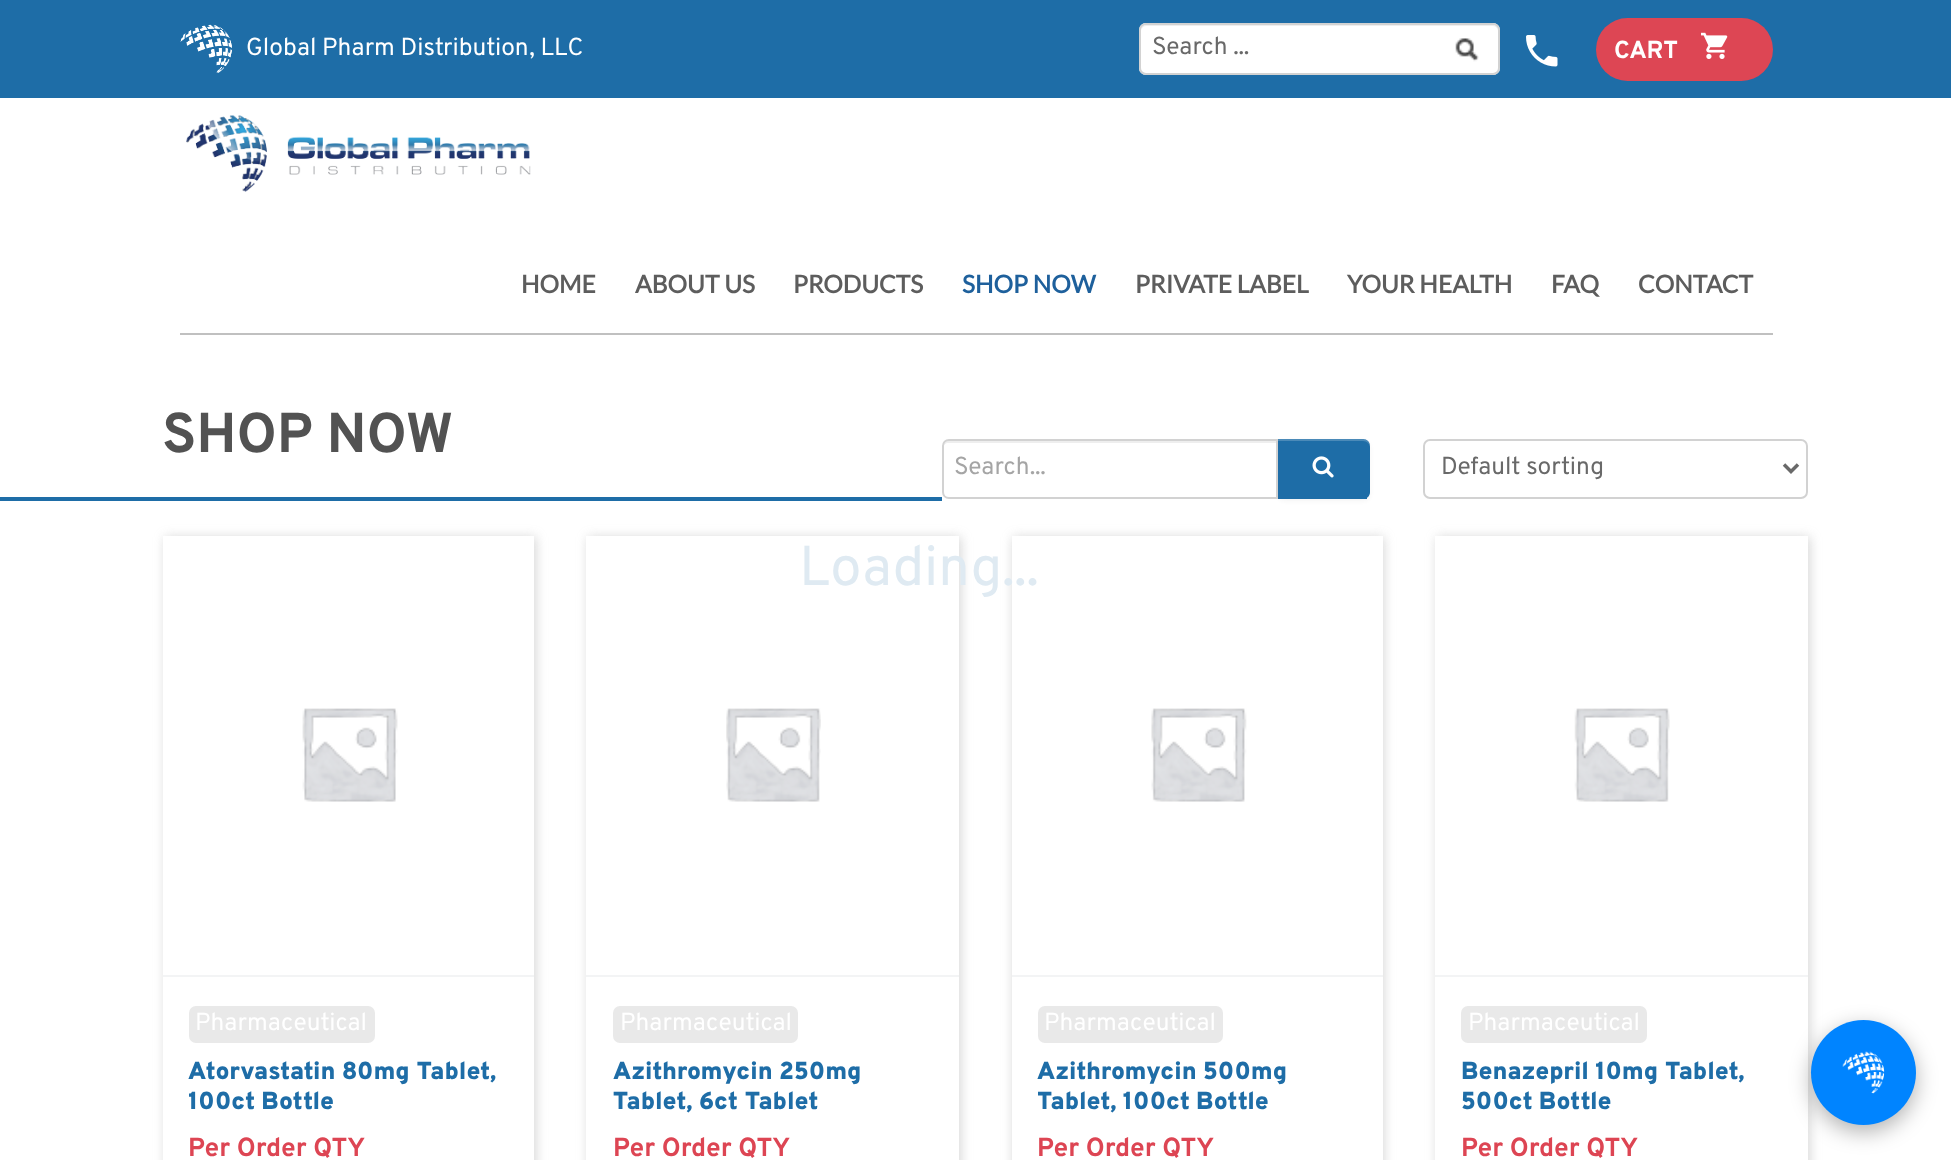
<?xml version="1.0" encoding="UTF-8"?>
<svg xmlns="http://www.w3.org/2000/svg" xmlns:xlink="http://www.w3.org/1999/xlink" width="1951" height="1160">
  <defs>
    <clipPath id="clip1"><path d="M 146 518 h 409 v 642 h -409 z m 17 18 h 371 v 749 h -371 z" clip-rule="evenodd" /></clipPath>
    <clipPath id="clip2"><path d="M 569 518 h 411 v 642 h -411 z m 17 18 h 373 v 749 h -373 z" clip-rule="evenodd" /></clipPath>
    <clipPath id="clip3"><path d="M 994 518 h 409 v 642 h -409 z m 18 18 h 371 v 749 h -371 z" clip-rule="evenodd" /></clipPath>
    <clipPath id="clip4"><path d="M 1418 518 h 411 v 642 h -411 z m 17 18 h 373 v 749 h -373 z" clip-rule="evenodd" /></clipPath>
    <clipPath id="clip5"><rect x="189" y="1059" width="319" height="59" /></clipPath>
    <clipPath id="clip6"><rect x="1038" y="1059" width="318" height="59" /></clipPath>
  </defs>
  <rect width="100%" height="100%" fill="#ffffff" />
  <rect width="1951" height="98" fill="#1e6da7" />
  <image x="180" y="24" width="52" height="49" xlink:href="image1.png" />
  <rect x="1139" y="23" width="361" height="52" rx="7" fill="#ffffff" />
  <path d="M 1146 26 h 347 c 3 0 5 3 5 6 c 0 -3 -1 -7 -5 -7 h -347 c -4 0 -5 4 -5 7 c 0 -3 2 -6 5 -6 z" fill="#eeeeee" />
  <rect x="1140" y="24" width="359" height="50" rx="6" fill="none" stroke="#d2d2d2" stroke-width="2" />
  <image x="1455" y="38" width="24" height="24" xlink:href="image2.png" />
  <image x="1526" y="35" width="32" height="32" xlink:href="image3.png" />
  <rect x="1596" y="18" width="177" height="63" rx="31.5" fill="#dd4654" />
  <image x="1701" y="32" width="27" height="27" xlink:href="image4.png" />
  <rect x="180" y="333" width="1593" height="2" fill="#c0c0c0" />
  <image x="186" y="115" width="345" height="77" xlink:href="image5.png" />
  <rect y="497" width="942" height="4" fill="#1e6da7" />
  <rect x="1278" y="441" width="92" height="60" rx="7" fill="#1e1e1e" fill-opacity="0.05" filter="blur(2px)" />
  <path d="M 949 439 h 329 v 60 h -329 c -4 0 -7 -3 -7 -7 v -46 c 0 -4 3 -7 7 -7 z" fill="#ffffff" />
  <path d="M 948 443 h 328 v -2 h -328 c -3 0 -5 2 -5 5 v 2 c 0 -3 3 -5 5 -5 z" fill="#eeeeee" />
  <path d="M 949 440 h 328 v 58 h -328 c -3.5 0 -6 -2.5 -6 -6 v -46 c 0 -3.5 2.5 -6 6 -6 z" fill="none" stroke="#d2d2d2" stroke-width="2" />
  <path d="M 1278 439 h 85 c 4 0 7 3 7 7 v 46 c 0 4 -3 7 -7 7 h -85 z" fill="#1e6da7" />
  <path d="M 1278 441 h 85 c 4 0 7 3 7 7 v 45 v -48 c -2 -9 -16 -6 -21 -6 h -71 v 56 z" fill="#ffffff" fill-opacity="0.2" />
  <rect x="1363" y="497" width="4" height="2" fill="#1e6da7" />
  <image x="1312" y="456" width="22" height="22" xlink:href="image6.png" />
  <rect x="1424" y="440" width="383" height="58" rx="6" fill="none" stroke="#d2d2d2" stroke-width="2" />
  <path d="M 1784 464.5 l 7 7 l 7 -7" fill="none" stroke="#696969" stroke-width="3.5" />
  <g clip-path="url(#clip1)">
    <rect x="165" y="537" width="371" height="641" fill="#818181" fill-opacity="0.32" filter="blur(6px)" />
  </g>
  <image x="302" y="708" width="96" height="94" xlink:href="image7.png" />
  <rect x="533" y="977" width="1" height="183" fill="#ffffff" />
  <rect x="163" y="975" width="371" height="2" fill="#f3f4f5" />
  <rect x="189" y="1006" width="186" height="37" rx="7" fill="#e9e9e9" />
  <g clip-path="url(#clip2)">
    <rect x="588" y="537" width="373" height="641" fill="#818181" fill-opacity="0.32" filter="blur(6px)" />
  </g>
  <image x="726" y="708" width="95" height="94" xlink:href="image8.png" />
  <rect x="586" y="977" width="1" height="183" fill="#ffffff" />
  <rect x="586" y="975" width="373" height="2" fill="#f3f4f5" />
  <rect x="613" y="1006" width="185" height="37" rx="7" fill="#e9e9e9" />
  <g clip-path="url(#clip3)">
    <rect x="1013" y="537" width="371" height="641" fill="#818181" fill-opacity="0.32" filter="blur(6px)" />
  </g>
  <image x="1151" y="708" width="96" height="94" xlink:href="image9.png" />
  <rect x="1382" y="977" width="1" height="183" fill="#ffffff" />
  <rect x="1012" y="975" width="371" height="2" fill="#f3f4f5" />
  <rect x="1038" y="1006" width="185" height="37" rx="7" fill="#e9e9e9" />
  <g clip-path="url(#clip4)">
    <rect x="1437" y="537" width="373" height="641" fill="#818181" fill-opacity="0.32" filter="blur(6px)" />
  </g>
  <image x="1574" y="708" width="96" height="94" xlink:href="image10.png" />
  <rect x="1807" y="977" width="1" height="183" fill="#ffffff" />
  <rect x="1435" y="975" width="373" height="2" fill="#f3f4f5" />
  <rect x="1461" y="1006" width="186" height="37" rx="7" fill="#e9e9e9" />
  <rect x="1811" y="1027" width="105" height="105" rx="52.5" fill="#000000" fill-opacity="0.3" filter="blur(10.5px)" />
  <circle cx="1863.5" cy="1072.5" r="52.5" fill="#0084ff" />
  <image x="1842" y="1051" width="43" height="43" xlink:href="image11.png" />
  <text x="246" y="55" style="font-family: Overpass; font-size: 24.5px; fill: #ffffff">Global Pharm Distribution, LLC</text>
  <text x="1152" y="54" style="font-family: Overpass; font-size: 24.5px; fill: #696969">Search ...</text>
  <text x="1614" y="58" style="font-family: Overpass; font-size: 24.5px; font-weight: bold; fill: #ffffff">CART</text>
  <text x="521" y="293" style="font-family: Lato; font-size: 24.5px; font-weight: bold; fill: #5d5d5d">HOME</text>
  <text x="635" y="293" style="font-family: Lato; font-size: 24.5px; font-weight: bold; fill: #5d5d5d">ABOUT US</text>
  <text x="793" y="293" style="font-family: Lato; font-size: 24.5px; font-weight: bold; fill: #5d5d5d">PRODUCTS</text>
  <text x="962" y="293" style="font-family: Lato; font-size: 24.5px; font-weight: bold; fill: #1e609c">SHOP NOW</text>
  <text x="1135" y="293" style="font-family: Lato; font-size: 24.5px; font-weight: bold; fill: #5d5d5d">PRIVATE LABEL</text>
  <text x="1347" y="293" style="font-family: Lato; font-size: 24.5px; font-weight: bold; fill: #5d5d5d">YOUR HEALTH</text>
  <text x="1551" y="293" style="font-family: Lato; font-size: 24.5px; font-weight: bold; fill: #5d5d5d">FAQ</text>
  <text x="1638" y="293" style="font-family: Lato; font-size: 24.5px; font-weight: bold; fill: #5d5d5d">CONTACT</text>
  <text x="162" y="452" style="font-family: Overpass; font-size: 56px; font-weight: bold; fill: #525252">SHOP NOW</text>
  <text x="954" y="474" style="font-family: Overpass; font-size: 24.5px; fill: #a5a5a5">Search...</text>
  <text x="1441" y="474" style="font-family: Overpass; font-size: 24.5px; fill: #696969">Default sorting</text>
  <text x="195" y="1030" style="font-family: Overpass; font-size: 24.5px; fill: #ffffff">Pharmaceutical</text>
  <text x="188" y="1079" style="font-family: Overpass; font-size: 24.5px; font-weight: 900; fill: #1e6da7">Atorvastatin 80mg Tablet,</text>
  <g clip-path="url(#clip5)">
    <text x="188" y="1109" style="font-family: Overpass; font-size: 24.5px; font-weight: 900; fill: #1e6da7">100ct Bottle</text>
  </g>
  <text x="188" y="1156" style="font-family: Overpass; font-size: 26.25px; font-weight: bold; fill: #dd4553">Per Order QTY</text>
  <text x="620" y="1030" style="font-family: Overpass; font-size: 24.5px; fill: #ffffff">Pharmaceutical</text>
  <text x="613" y="1079" style="font-family: Overpass; font-size: 24.5px; font-weight: 900; fill: #1e6da7">Azithromycin 250mg</text>
  <text x="613" y="1109" style="font-family: Overpass; font-size: 24.5px; font-weight: 900; fill: #1e6da7">Tablet, 6ct Tablet</text>
  <text x="613" y="1156" style="font-family: Overpass; font-size: 26.25px; font-weight: bold; fill: #dd4553">Per Order QTY</text>
  <text x="1044" y="1030" style="font-family: Overpass; font-size: 24.5px; fill: #ffffff">Pharmaceutical</text>
  <text x="1037" y="1079" style="font-family: Overpass; font-size: 24.5px; font-weight: 900; fill: #1e6da7">Azithromycin 500mg</text>
  <g clip-path="url(#clip6)">
    <text x="1037" y="1109" style="font-family: Overpass; font-size: 24.5px; font-weight: 900; fill: #1e6da7">Tablet, 100ct Bottle</text>
  </g>
  <text x="1037" y="1156" style="font-family: Overpass; font-size: 26.25px; font-weight: bold; fill: #dd4553">Per Order QTY</text>
  <text x="1468" y="1030" style="font-family: Overpass; font-size: 24.5px; fill: #ffffff">Pharmaceutical</text>
  <text x="1461" y="1079" style="font-family: Overpass; font-size: 24.5px; font-weight: 900; fill: #1e6da7">Benazepril 10mg Tablet,</text>
  <text x="1461" y="1109" style="font-family: Overpass; font-size: 24.5px; font-weight: 900; fill: #1e6da7">500ct Bottle</text>
  <text x="1461" y="1156" style="font-family: Overpass; font-size: 26.25px; font-weight: bold; fill: #dd4553">Per Order QTY</text>
  <text x="799" y="585" style="font-family: Overpass; font-size: 56px; fill: #dfeaf2">Loading...</text>
</svg>
